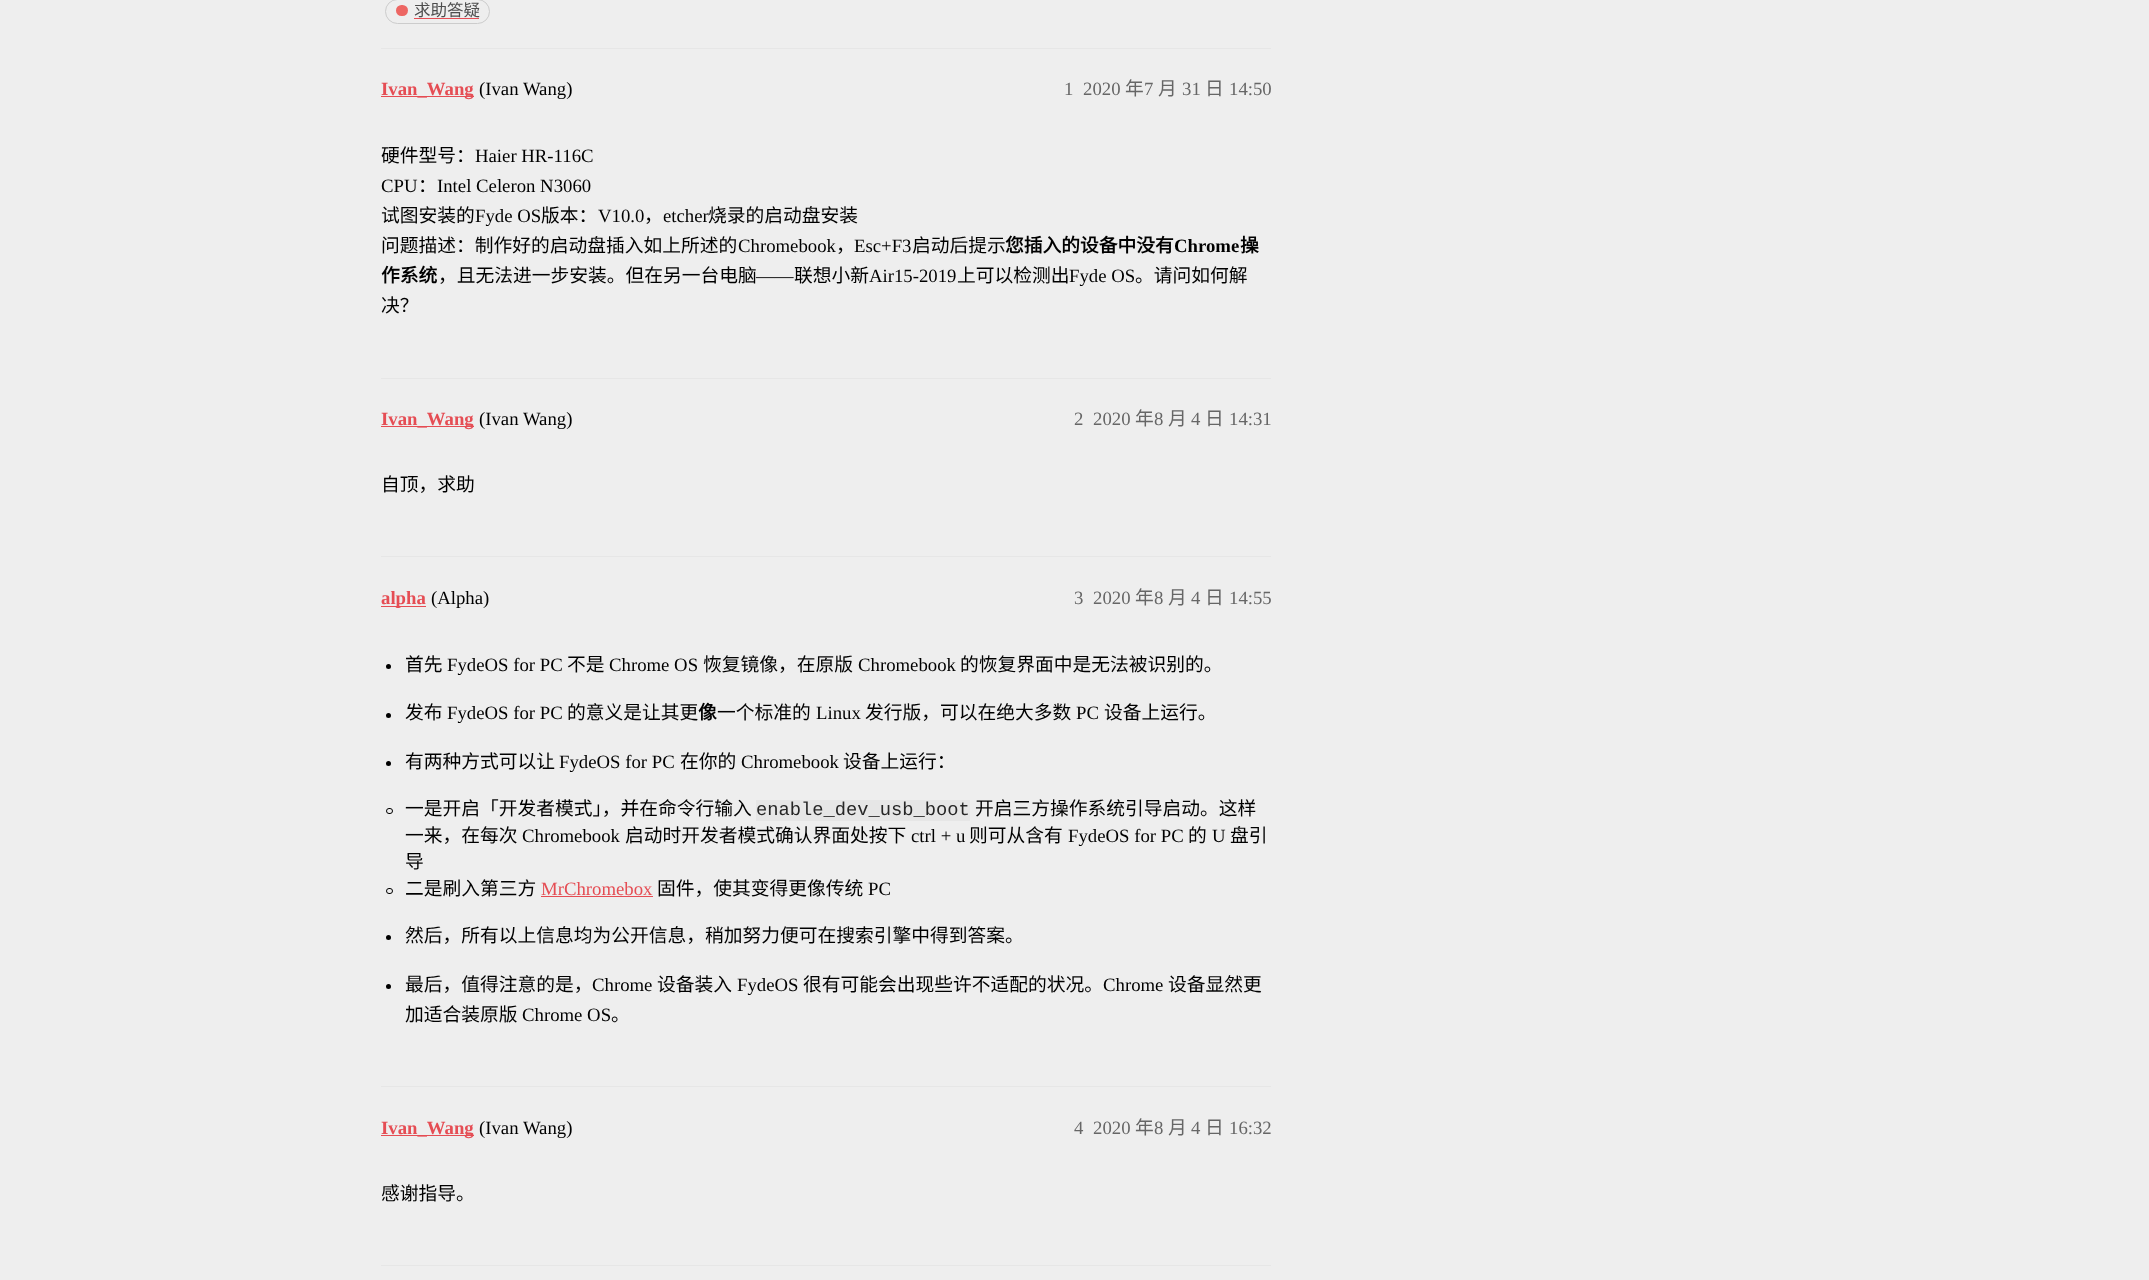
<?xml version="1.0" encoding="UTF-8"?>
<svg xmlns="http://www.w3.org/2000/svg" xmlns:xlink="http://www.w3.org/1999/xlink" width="2149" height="1280">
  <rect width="100%" height="100%" fill="#eeeeee" />
  <rect x="385.5" y="-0.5" width="104" height="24" rx="12" fill="none" stroke="#cccccc" />
  <rect x="396" y="5" width="12" height="11" rx="5.5" fill="#ed6663" />
  <rect x="414" y="18" width="65" height="1" fill="#e54d54" />
  <rect x="381" y="48" width="890" height="1" fill="#e6e6e6" />
  <rect x="381" y="96" width="93" height="1" fill="#e54d54" />
  <rect x="381" y="378" width="890" height="1" fill="#e6e6e6" />
  <rect x="381" y="426" width="93" height="1" fill="#e54d54" />
  <rect x="381" y="556" width="890" height="1" fill="#e6e6e6" />
  <rect x="381" y="606" width="45" height="1" fill="#e54d54" />
  <circle cx="388.5" cy="666.5" r="2.5" fill="#000000" />
  <circle cx="388.5" cy="715.5" r="2.5" fill="#000000" />
  <circle cx="388.5" cy="763.5" r="2.5" fill="#000000" />
  <rect x="386.5" y="808.5" width="6" height="5" rx="2.5" fill="none" stroke="#000000" />
  <rect x="756" y="800" width="214" height="21" fill="#e6e6e6" />
  <rect x="386.5" y="888.5" width="6" height="5" rx="2.5" fill="none" stroke="#000000" />
  <rect x="541" y="896" width="112" height="1" fill="#e54d54" />
  <circle cx="388.5" cy="937.5" r="2.5" fill="#000000" />
  <circle cx="388.5" cy="986.5" r="2.5" fill="#000000" />
  <rect x="381" y="1086" width="890" height="1" fill="#e6e6e6" />
  <rect x="381" y="1135" width="93" height="1" fill="#e54d54" />
  <rect x="381" y="1265" width="890" height="1" fill="#e6e6e6" />
  <text x="414" y="16" style="font-family: Noto Sans CJK SC; font-size: 16.5px; fill: #4d4d4d">求助答疑</text>
  <text x="381" y="95" style="font-family: Liberation Serif; font-size: 18.75px; font-weight: bold; fill: #e54d54">Ivan_Wang</text>
  <text x="479" y="95" style="font-family: Liberation Serif; font-size: 18.75px; fill: #000000">(Ivan Wang)</text>
  <text x="1064" y="95" style="font-family: Liberation Serif; font-size: 18.75px; fill: #666666">1</text>
  <text x="1083" y="95" style="font-family: Liberation Serif; font-size: 18.75px; fill: #666666">2020</text>
  <text x="1125" y="95" style="font-family: Noto Sans CJK SC; font-size: 18.75px; fill: #666666">年</text>
  <text x="1144" y="95" style="font-family: Liberation Serif; font-size: 18.75px; fill: #666666">7</text>
  <text x="1158" y="95" style="font-family: Noto Sans CJK SC; font-size: 18.75px; fill: #666666">月</text>
  <text x="1182" y="95" style="font-family: Liberation Serif; font-size: 18.75px; fill: #666666">31</text>
  <text x="1205" y="95" style="font-family: Noto Sans CJK SC; font-size: 18.75px; fill: #666666">日</text>
  <text x="1229" y="95" style="font-family: Liberation Serif; font-size: 18.75px; fill: #666666">14:50</text>
  <text x="381" y="162" style="font-family: Noto Sans CJK SC; font-size: 18.75px; fill: #000000">硬件型号：</text>
  <text x="475" y="162" style="font-family: Liberation Serif; font-size: 18.75px; fill: #000000">Haier HR-116C</text>
  <text x="381" y="192" style="font-family: Liberation Serif; font-size: 18.75px; fill: #000000">CPU</text>
  <text x="418" y="192" style="font-family: Noto Sans CJK SC; font-size: 18.75px; fill: #000000">：</text>
  <text x="437" y="192" style="font-family: Liberation Serif; font-size: 18.75px; fill: #000000">Intel Celeron N3060</text>
  <text x="381" y="222" style="font-family: Noto Sans CJK SC; font-size: 18.75px; fill: #000000">试图安装的</text>
  <text x="475" y="222" style="font-family: Liberation Serif; font-size: 18.75px; fill: #000000">Fyde OS</text>
  <text x="541" y="222" style="font-family: Noto Sans CJK SC; font-size: 18.75px; fill: #000000">版本：</text>
  <text x="598" y="222" style="font-family: Liberation Serif; font-size: 18.75px; fill: #000000">V10.0</text>
  <text x="644" y="222" style="font-family: Noto Sans CJK SC; font-size: 18.75px; fill: #000000">，</text>
  <text x="663" y="222" style="font-family: Liberation Serif; font-size: 18.75px; fill: #000000">etcher</text>
  <text x="708" y="222" style="font-family: Noto Sans CJK SC; font-size: 18.75px; fill: #000000">烧录的启动盘安装</text>
  <text x="381" y="252" style="font-family: Noto Sans CJK SC; font-size: 18.75px; fill: #000000">问题描述：制作好的启动盘插入如上所述的</text>
  <text x="738" y="252" style="font-family: Liberation Serif; font-size: 18.75px; fill: #000000">Chromebook</text>
  <text x="836" y="252" style="font-family: Noto Sans CJK SC; font-size: 18.75px; fill: #000000">，</text>
  <text x="854" y="252" style="font-family: Liberation Serif; font-size: 18.75px; fill: #000000">Esc+F3</text>
  <text x="912" y="252" style="font-family: Noto Sans CJK SC; font-size: 18.75px; fill: #000000">启动后提示</text>
  <text x="1005" y="252" style="font-family: Noto Sans CJK SC; font-size: 18.75px; font-weight: bold; fill: #000000">您插入的设备中没有</text>
  <text x="1174" y="252" style="font-family: Liberation Serif; font-size: 18.75px; font-weight: bold; fill: #000000">Chrome</text>
  <text x="1240" y="252" style="font-family: Noto Sans CJK SC; font-size: 18.75px; font-weight: bold; fill: #000000">操</text>
  <text x="381" y="282" style="font-family: Noto Sans CJK SC; font-size: 18.75px; font-weight: bold; fill: #000000">作系统</text>
  <text x="438" y="282" style="font-family: Noto Sans CJK SC; font-size: 18.75px; fill: #000000">，且无法进一步安装。但在另一台电脑</text>
  <text x="756" y="282" style="font-family: Liberation Serif; font-size: 18.75px; fill: #000000">——</text>
  <text x="794" y="282" style="font-family: Noto Sans CJK SC; font-size: 18.75px; fill: #000000">联想小新</text>
  <text x="869" y="282" style="font-family: Liberation Serif; font-size: 18.75px; fill: #000000">Air15-2019</text>
  <text x="957" y="282" style="font-family: Noto Sans CJK SC; font-size: 18.75px; fill: #000000">上可以检测出</text>
  <text x="1069" y="282" style="font-family: Liberation Serif; font-size: 18.75px; fill: #000000">Fyde OS</text>
  <text x="1135" y="282" style="font-family: Noto Sans CJK SC; font-size: 18.75px; fill: #000000">。请问如何解</text>
  <text x="381" y="312" style="font-family: Noto Sans CJK SC; font-size: 18.75px; fill: #000000">决？</text>
  <text x="381" y="425" style="font-family: Liberation Serif; font-size: 18.75px; font-weight: bold; fill: #e54d54">Ivan_Wang</text>
  <text x="479" y="425" style="font-family: Liberation Serif; font-size: 18.75px; fill: #000000">(Ivan Wang)</text>
  <text x="1074" y="425" style="font-family: Liberation Serif; font-size: 18.75px; fill: #666666">2</text>
  <text x="1093" y="425" style="font-family: Liberation Serif; font-size: 18.75px; fill: #666666">2020</text>
  <text x="1135" y="425" style="font-family: Noto Sans CJK SC; font-size: 18.75px; fill: #666666">年</text>
  <text x="1154" y="425" style="font-family: Liberation Serif; font-size: 18.75px; fill: #666666">8</text>
  <text x="1168" y="425" style="font-family: Noto Sans CJK SC; font-size: 18.75px; fill: #666666">月</text>
  <text x="1191" y="425" style="font-family: Liberation Serif; font-size: 18.75px; fill: #666666">4</text>
  <text x="1205" y="425" style="font-family: Noto Sans CJK SC; font-size: 18.75px; fill: #666666">日</text>
  <text x="1229" y="425" style="font-family: Liberation Serif; font-size: 18.75px; fill: #666666">14:31</text>
  <text x="381" y="491" style="font-family: Noto Sans CJK SC; font-size: 18.75px; fill: #000000">自顶，求助</text>
  <text x="381" y="604" style="font-family: Liberation Serif; font-size: 18.75px; font-weight: bold; fill: #e54d54">alpha</text>
  <text x="431" y="604" style="font-family: Liberation Serif; font-size: 18.75px; fill: #000000">(Alpha)</text>
  <text x="1074" y="604" style="font-family: Liberation Serif; font-size: 18.75px; fill: #666666">3</text>
  <text x="1093" y="604" style="font-family: Liberation Serif; font-size: 18.75px; fill: #666666">2020</text>
  <text x="1135" y="604" style="font-family: Noto Sans CJK SC; font-size: 18.75px; fill: #666666">年</text>
  <text x="1154" y="604" style="font-family: Liberation Serif; font-size: 18.75px; fill: #666666">8</text>
  <text x="1168" y="604" style="font-family: Noto Sans CJK SC; font-size: 18.75px; fill: #666666">月</text>
  <text x="1191" y="604" style="font-family: Liberation Serif; font-size: 18.75px; fill: #666666">4</text>
  <text x="1205" y="604" style="font-family: Noto Sans CJK SC; font-size: 18.75px; fill: #666666">日</text>
  <text x="1229" y="604" style="font-family: Liberation Serif; font-size: 18.75px; fill: #666666">14:55</text>
  <text x="405" y="671" style="font-family: Noto Sans CJK SC; font-size: 18.75px; fill: #000000">首先</text>
  <text x="447" y="671" style="font-family: Liberation Serif; font-size: 18.75px; fill: #000000">FydeOS for PC</text>
  <text x="567" y="671" style="font-family: Noto Sans CJK SC; font-size: 18.75px; fill: #000000">不是</text>
  <text x="609" y="671" style="font-family: Liberation Serif; font-size: 18.75px; fill: #000000">Chrome OS</text>
  <text x="703" y="671" style="font-family: Noto Sans CJK SC; font-size: 18.75px; fill: #000000">恢复镜像，在原版</text>
  <text x="858" y="671" style="font-family: Liberation Serif; font-size: 18.75px; fill: #000000">Chromebook</text>
  <text x="960" y="671" style="font-family: Noto Sans CJK SC; font-size: 18.75px; fill: #000000">的恢复界面中是无法被识别的。</text>
  <text x="405" y="719" style="font-family: Noto Sans CJK SC; font-size: 18.75px; fill: #000000">发布</text>
  <text x="447" y="719" style="font-family: Liberation Serif; font-size: 18.75px; fill: #000000">FydeOS for PC</text>
  <text x="567" y="719" style="font-family: Noto Sans CJK SC; font-size: 18.75px; fill: #000000">的意义是让其更</text>
  <text x="698" y="719" style="font-family: Noto Sans CJK SC; font-size: 18.75px; font-weight: bold; fill: #000000">像</text>
  <text x="717" y="719" style="font-family: Noto Sans CJK SC; font-size: 18.75px; fill: #000000">一个标准的</text>
  <text x="816" y="719" style="font-family: Liberation Serif; font-size: 18.75px; fill: #000000">Linux</text>
  <text x="865" y="719" style="font-family: Noto Sans CJK SC; font-size: 18.75px; fill: #000000">发行版，可以在绝大多数</text>
  <text x="1076" y="719" style="font-family: Liberation Serif; font-size: 18.75px; fill: #000000">PC</text>
  <text x="1104" y="719" style="font-family: Noto Sans CJK SC; font-size: 18.75px; fill: #000000">设备上运行。</text>
  <text x="405" y="768" style="font-family: Noto Sans CJK SC; font-size: 18.75px; fill: #000000">有两种方式可以让</text>
  <text x="559" y="768" style="font-family: Liberation Serif; font-size: 18.75px; fill: #000000">FydeOS for PC</text>
  <text x="680" y="768" style="font-family: Noto Sans CJK SC; font-size: 18.75px; fill: #000000">在你的</text>
  <text x="741" y="768" style="font-family: Liberation Serif; font-size: 18.75px; fill: #000000">Chromebook</text>
  <text x="843" y="768" style="font-family: Noto Sans CJK SC; font-size: 18.75px; fill: #000000">设备上运行：</text>
  <text x="405" y="815" style="font-family: Noto Sans CJK SC; font-size: 18.75px; fill: #000000">一是开启「开发者模式」，并在命令行输入</text>
  <text x="756" y="815" style="font-family: Liberation Mono; font-size: 18.75px; fill: #262626">enable_dev_usb_boot</text>
  <text x="975" y="815" style="font-family: Noto Sans CJK SC; font-size: 18.75px; fill: #000000">开启三方操作系统引导启动。这样</text>
  <text x="405" y="842" style="font-family: Noto Sans CJK SC; font-size: 18.75px; fill: #000000">一来，在每次</text>
  <text x="522" y="842" style="font-family: Liberation Serif; font-size: 18.75px; fill: #000000">Chromebook</text>
  <text x="625" y="842" style="font-family: Noto Sans CJK SC; font-size: 18.75px; fill: #000000">启动时开发者模式确认界面处按下</text>
  <text x="911" y="842" style="font-family: Liberation Serif; font-size: 18.75px; fill: #000000">ctrl + u</text>
  <text x="969" y="842" style="font-family: Noto Sans CJK SC; font-size: 18.75px; fill: #000000">则可从含有</text>
  <text x="1068" y="842" style="font-family: Liberation Serif; font-size: 18.75px; fill: #000000">FydeOS for PC</text>
  <text x="1188" y="842" style="font-family: Noto Sans CJK SC; font-size: 18.75px; fill: #000000">的</text>
  <text x="1212" y="842" style="font-family: Liberation Serif; font-size: 18.75px; fill: #000000">U</text>
  <text x="1230" y="842" style="font-family: Noto Sans CJK SC; font-size: 18.75px; fill: #000000">盘引</text>
  <text x="405" y="868" style="font-family: Noto Sans CJK SC; font-size: 18.75px; fill: #000000">导</text>
  <text x="405" y="895" style="font-family: Noto Sans CJK SC; font-size: 18.75px; fill: #000000">二是刷入第三方</text>
  <text x="541" y="895" style="font-family: Liberation Serif; font-size: 18.75px; fill: #e54d54">MrChromebox</text>
  <text x="657" y="895" style="font-family: Noto Sans CJK SC; font-size: 18.75px; fill: #000000">固件，使其变得更像传统</text>
  <text x="868" y="895" style="font-family: Liberation Serif; font-size: 18.75px; fill: #000000">PC</text>
  <text x="405" y="942" style="font-family: Noto Sans CJK SC; font-size: 18.75px; fill: #000000">然后，所有以上信息均为公开信息，稍加努力便可在搜索引擎中得到答案。</text>
  <text x="405" y="991" style="font-family: Noto Sans CJK SC; font-size: 18.75px; fill: #000000">最后，值得注意的是，</text>
  <text x="592" y="991" style="font-family: Liberation Serif; font-size: 18.75px; fill: #000000">Chrome</text>
  <text x="657" y="991" style="font-family: Noto Sans CJK SC; font-size: 18.75px; fill: #000000">设备装入</text>
  <text x="737" y="991" style="font-family: Liberation Serif; font-size: 18.75px; fill: #000000">FydeOS</text>
  <text x="803" y="991" style="font-family: Noto Sans CJK SC; font-size: 18.75px; fill: #000000">很有可能会出现些许不适配的状况。</text>
  <text x="1103" y="991" style="font-family: Liberation Serif; font-size: 18.75px; fill: #000000">Chrome</text>
  <text x="1168" y="991" style="font-family: Noto Sans CJK SC; font-size: 18.75px; fill: #000000">设备显然更</text>
  <text x="405" y="1021" style="font-family: Noto Sans CJK SC; font-size: 18.75px; fill: #000000">加适合装原版</text>
  <text x="522" y="1021" style="font-family: Liberation Serif; font-size: 18.75px; fill: #000000">Chrome OS</text>
  <text x="611" y="1021" style="font-family: Noto Sans CJK SC; font-size: 18.75px; fill: #000000">。</text>
  <text x="381" y="1134" style="font-family: Liberation Serif; font-size: 18.75px; font-weight: bold; fill: #e54d54">Ivan_Wang</text>
  <text x="479" y="1134" style="font-family: Liberation Serif; font-size: 18.75px; fill: #000000">(Ivan Wang)</text>
  <text x="1074" y="1134" style="font-family: Liberation Serif; font-size: 18.75px; fill: #666666">4</text>
  <text x="1093" y="1134" style="font-family: Liberation Serif; font-size: 18.75px; fill: #666666">2020</text>
  <text x="1135" y="1134" style="font-family: Noto Sans CJK SC; font-size: 18.75px; fill: #666666">年</text>
  <text x="1154" y="1134" style="font-family: Liberation Serif; font-size: 18.75px; fill: #666666">8</text>
  <text x="1168" y="1134" style="font-family: Noto Sans CJK SC; font-size: 18.75px; fill: #666666">月</text>
  <text x="1191" y="1134" style="font-family: Liberation Serif; font-size: 18.75px; fill: #666666">4</text>
  <text x="1205" y="1134" style="font-family: Noto Sans CJK SC; font-size: 18.75px; fill: #666666">日</text>
  <text x="1229" y="1134" style="font-family: Liberation Serif; font-size: 18.75px; fill: #666666">16:32</text>
  <text x="381" y="1200" style="font-family: Noto Sans CJK SC; font-size: 18.75px; fill: #000000">感谢指导。</text>
</svg>
